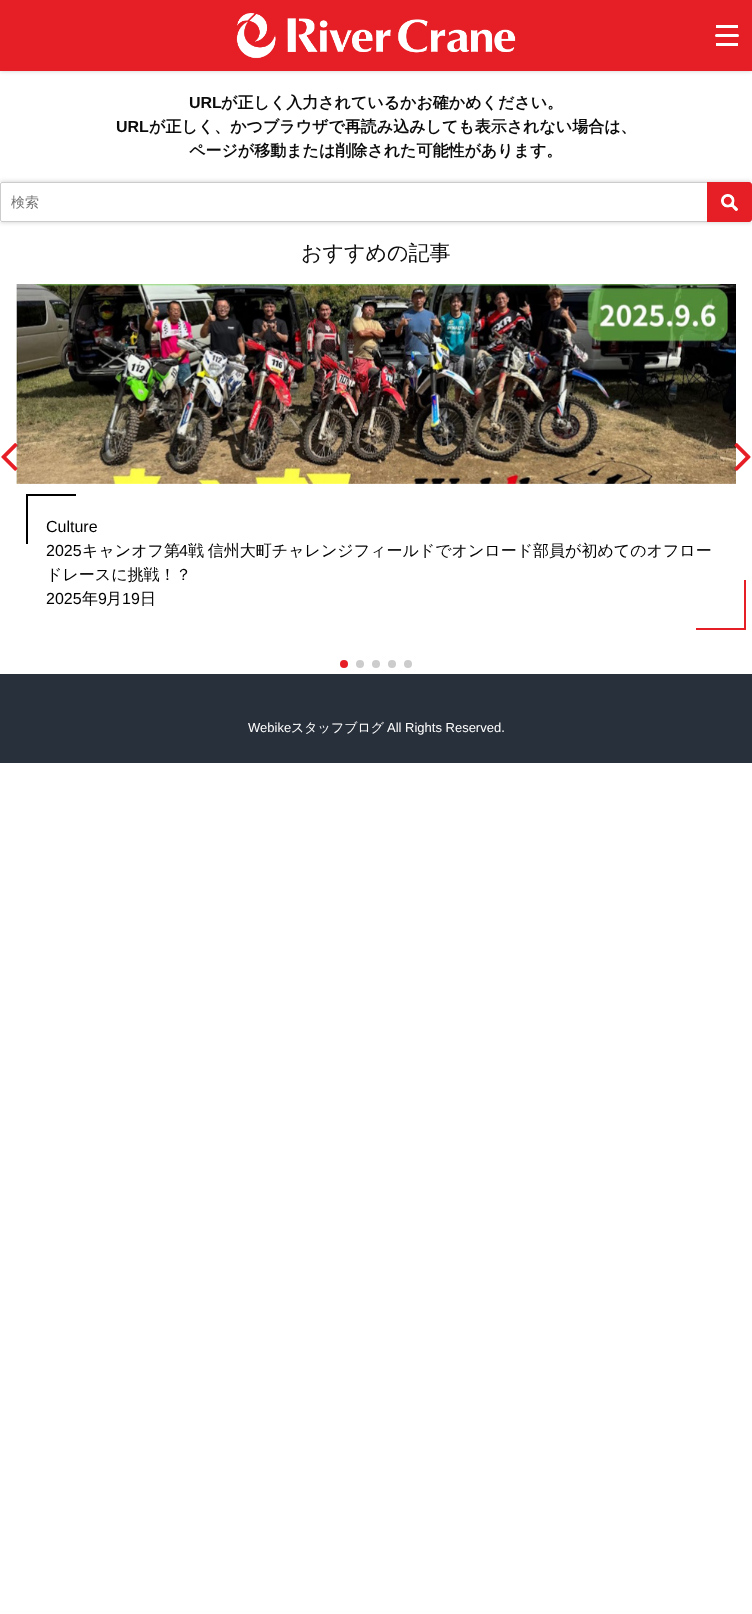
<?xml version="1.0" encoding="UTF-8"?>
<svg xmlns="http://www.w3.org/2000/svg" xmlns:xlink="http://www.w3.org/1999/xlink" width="752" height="1614">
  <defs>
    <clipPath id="clip1"><path d="M 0 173 h 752 v 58 h -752 z m 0 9 h 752 v 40 h -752 z" clip-rule="evenodd" /></clipPath>
  </defs>
  <rect width="100%" height="100%" fill="#ffffff" />
  <rect width="752" height="71" fill="#000000" fill-opacity="0.2" filter="blur(2px)" />
  <rect width="752" height="71" fill="#e61e25" />
  <image x="236" y="13" width="280" height="46" xlink:href="image1.png" />
  <rect x="716" y="25" width="22" height="3" fill="#ffffff" />
  <rect x="715" y="34" width="24" height="3" rx="1.5" fill="#ffffff" />
  <rect x="716" y="43" width="22" height="3" fill="#ffffff" />
  <g clip-path="url(#clip1)">
    <rect y="182" width="752" height="40" fill="#cccccc" filter="blur(2.5px)" />
  </g>
  <rect x="0.5" y="182.5" width="751" height="39" rx="1.5" fill="none" stroke="#cccccc" />
  <path d="M 707 182 h 42 c 1.5 0 3 1.5 3 3 v 34 c 0 1.5 -1.5 3 -3 3 h -42 z" fill="#e61e25" />
  <image x="721" y="194" width="17" height="17" xlink:href="image2.png" />
  <image x="16" y="284" width="720" height="200" xlink:href="image5.png" />
  <image x="1" y="443" width="17" height="28" xlink:href="image3.png" />
  <image x="734" y="443" width="17" height="28" xlink:href="image4.png" />
  <rect x="26" y="494" width="50" height="2" fill="#000000" />
  <rect x="26" y="494" width="2" height="50" fill="#000000" />
  <rect x="744" y="580" width="2" height="50" fill="#e61e25" />
  <rect x="696" y="628" width="50" height="2" fill="#e61e25" />
  <circle cx="344" cy="664" r="4" fill="#e61e25" />
  <circle cx="360" cy="664" r="4" fill="#cccccc" />
  <circle cx="376" cy="664" r="4" fill="#cccccc" />
  <circle cx="392" cy="664" r="4" fill="#cccccc" />
  <circle cx="408" cy="664" r="4" fill="#cccccc" />
  <rect y="674" width="752" height="89" fill="#28303c" />
  <text x="189" y="108" style="font-family: Liberation Sans; font-size: 16px; font-weight: bold; fill: #0a0a0a">URL</text>
  <text x="221" y="108" style="font-family: WenQuanYi Zen Hei; font-size: 16px; font-weight: bold; fill: #0a0a0a">が正しく入力されているかお確かめください。</text>
  <text x="116" y="132" style="font-family: Liberation Sans; font-size: 16px; font-weight: bold; fill: #0a0a0a">URL</text>
  <text x="149" y="132" style="font-family: WenQuanYi Zen Hei; font-size: 16px; font-weight: bold; fill: #0a0a0a">が正しく、かつブラウザで再読み込みしても表示されない場合は、</text>
  <text x="189" y="156" style="font-family: WenQuanYi Zen Hei; font-size: 16px; font-weight: bold; fill: #0a0a0a">ページが移動または削除された可能性があります。</text>
  <text x="11" y="207" style="font-family: WenQuanYi Zen Hei; font-size: 14px; font-weight: 500; fill: #757575">検索</text>
  <text x="301" y="260" style="font-family: WenQuanYi Zen Hei; font-size: 21px; font-weight: 500; fill: #0a0a0a">おすすめの記事</text>
  <text x="46" y="532" style="font-family: Liberation Sans; font-size: 16px; fill: #000000">Culture</text>
  <text x="46" y="556" style="font-family: Liberation Sans; font-size: 16px; fill: #000000">2025</text>
  <text x="82" y="556" style="font-family: WenQuanYi Zen Hei; font-size: 16px; font-weight: 500; fill: #000000">キャンオフ第</text>
  <text x="179" y="556" style="font-family: Liberation Sans; font-size: 16px; fill: #000000">4</text>
  <text x="188" y="556" word-spacing="-1" style="font-family: WenQuanYi Zen Hei; font-size: 16px; font-weight: 500; fill: #000000">戦 信州大町チャレンジフィールドでオンロード部員が初めてのオフロー</text>
  <text x="46" y="580" style="font-family: WenQuanYi Zen Hei; font-size: 16px; font-weight: 500; fill: #000000">ドレースに挑戦！？</text>
  <text x="46" y="604" style="font-family: Liberation Sans; font-size: 16px; fill: #000000">2025</text>
  <text x="82" y="604" style="font-family: WenQuanYi Zen Hei; font-size: 16px; font-weight: 500; fill: #000000">年</text>
  <text x="98" y="604" style="font-family: Liberation Sans; font-size: 16px; fill: #000000">9</text>
  <text x="106" y="604" style="font-family: WenQuanYi Zen Hei; font-size: 16px; font-weight: 500; fill: #000000">月</text>
  <text x="122" y="604" style="font-family: Liberation Sans; font-size: 16px; fill: #000000">19</text>
  <text x="140" y="604" style="font-family: WenQuanYi Zen Hei; font-size: 16px; font-weight: 500; fill: #000000">日</text>
  <text x="248" y="732" style="font-family: Liberation Sans; font-size: 13px; fill: #ffffff">Webike</text>
  <text x="291" y="732" style="font-family: WenQuanYi Zen Hei; font-size: 13px; font-weight: 500; fill: #ffffff">スタッフブログ</text>
  <text x="387" y="732" style="font-family: Liberation Sans; font-size: 13px; fill: #ffffff">All Rights Reserved.</text>
</svg>
